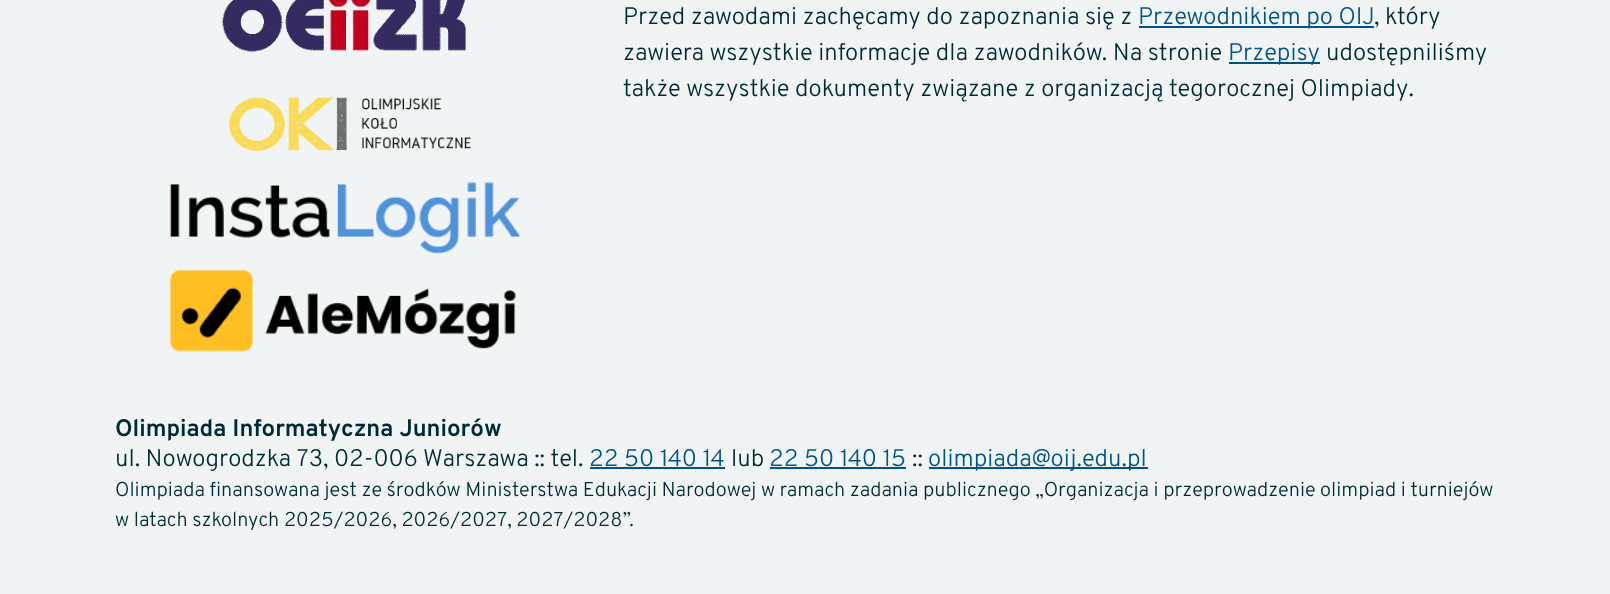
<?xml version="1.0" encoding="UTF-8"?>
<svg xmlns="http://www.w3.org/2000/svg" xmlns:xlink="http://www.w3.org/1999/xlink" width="1610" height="594">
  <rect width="100%" height="100%" fill="#f0f4f4" />
  <image x="222" y="0" width="244" height="52" xlink:href="image1.png" />
  <image x="228" y="96" width="243" height="55" xlink:href="image2.png" />
  <image x="169" y="181" width="352" height="73" xlink:href="image3.png" />
  <image x="169" y="269" width="347" height="83" xlink:href="image4.png" />
  <rect x="1139" y="26" width="235" height="2" fill="#005485" />
  <rect x="1229" y="62" width="91" height="2" fill="#005485" />
  <rect x="590" y="467" width="135" height="2" fill="#005485" />
  <rect x="770" y="467" width="136" height="2" fill="#005485" />
  <rect x="929" y="467" width="219" height="2" fill="#005485" />
  <text x="623" y="24" style="font-family: Overpass; font-size: 24px; font-weight: 300; fill: #002b36">Przed zawodami zachęcamy do zapoznania się z</text>
  <text x="1138" y="24" style="font-family: Overpass; font-size: 24px; font-weight: 300; fill: #005485">Przewodnikiem po OIJ</text>
  <text x="1374" y="24" style="font-family: Overpass; font-size: 24px; font-weight: 300; fill: #002b36">, który</text>
  <text x="623" y="60" style="font-family: Overpass; font-size: 24px; font-weight: 300; fill: #002b36">zawiera wszystkie informacje dla zawodników. Na stronie</text>
  <text x="1228" y="60" style="font-family: Overpass; font-size: 24px; font-weight: 300; fill: #005485">Przepisy</text>
  <text x="1326" y="60" style="font-family: Overpass; font-size: 24px; font-weight: 300; fill: #002b36">udostępniliśmy</text>
  <text x="623" y="96" style="font-family: Overpass; font-size: 24px; font-weight: 300; fill: #002b36">także wszystkie dokumenty związane z organizacją tegorocznej Olimpiady.</text>
  <text x="115" y="436" style="font-family: Overpass; font-size: 24px; font-weight: bold; fill: #002b36">Olimpiada Informatyczna Juniorów</text>
  <text x="115" y="466" style="font-family: Overpass; font-size: 24px; font-weight: 300; fill: #002b36">ul. Nowogrodzka 73, 02-006 Warszawa :: tel.</text>
  <text x="589" y="466" style="font-family: Overpass; font-size: 24px; font-weight: 300; fill: #005485">22 50 140 14</text>
  <text x="731" y="466" style="font-family: Overpass; font-size: 24px; font-weight: 300; fill: #002b36">lub</text>
  <text x="769" y="466" style="font-family: Overpass; font-size: 24px; font-weight: 300; fill: #005485">22 50 140 15</text>
  <text x="912" y="466" style="font-family: Overpass; font-size: 24px; font-weight: 300; fill: #002b36">::</text>
  <text x="928" y="466" style="font-family: Overpass; font-size: 24px; font-weight: 300; fill: #005485">olimpiada@oij.edu.pl</text>
  <text x="115" y="496" style="font-family: Overpass; font-size: 20px; font-weight: 300; fill: #002b36">Olimpiada finansowana jest ze środków Ministerstwa Edukacji Narodowej w ramach zadania publicznego „Organizacja i przeprowadzenie olimpiad i turniejów</text>
  <text x="115" y="526" style="font-family: Overpass; font-size: 20px; font-weight: 300; fill: #002b36">w latach szkolnych 2025/2026, 2026/2027, 2027/2028”.</text>
</svg>
